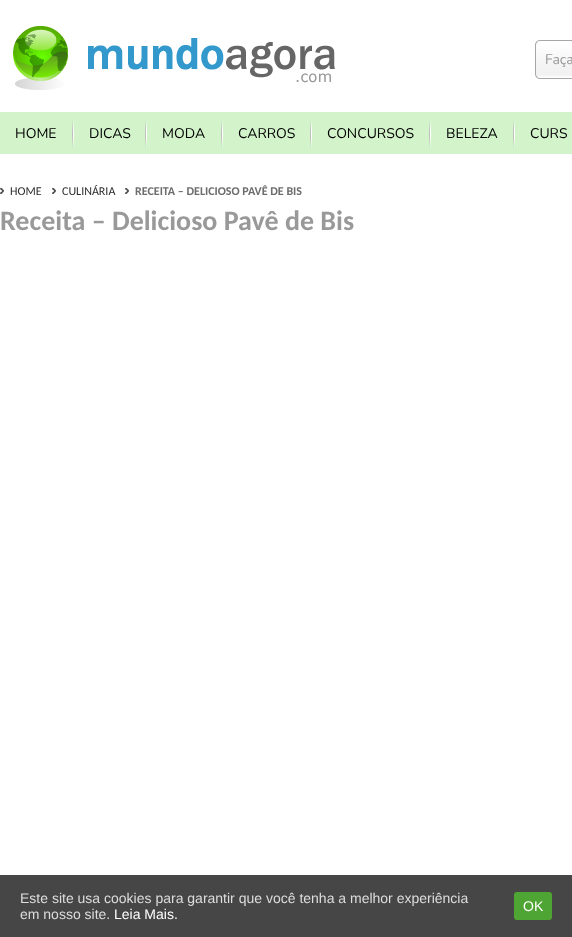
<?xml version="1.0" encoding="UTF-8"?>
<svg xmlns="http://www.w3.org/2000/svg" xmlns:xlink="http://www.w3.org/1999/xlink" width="572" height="937">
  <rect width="100%" height="100%" fill="#ffffff" />
  <image x="13" y="26" width="322" height="64" xlink:href="image1.png" />
  <image x="535" y="40" width="37" height="39" xlink:href="image2.png" />
  <rect y="112" width="572" height="42" fill="#d3f3cb" />
  <image x="72" y="120" width="2" height="28" xlink:href="image3.png" />
  <image x="145" y="120" width="2" height="28" xlink:href="image3.png" />
  <image x="221" y="120" width="2" height="28" xlink:href="image3.png" />
  <image x="310" y="120" width="2" height="28" xlink:href="image3.png" />
  <image x="429" y="120" width="2" height="28" xlink:href="image3.png" />
  <image x="513" y="120" width="2" height="28" xlink:href="image3.png" />
  <image x="0" y="188" width="4" height="6" xlink:href="image4.png" />
  <image x="52" y="188" width="4" height="6" xlink:href="image4.png" />
  <image x="125" y="188" width="4" height="6" xlink:href="image4.png" />
  <rect y="875" width="572" height="62" fill="#464646" />
  <rect x="514" y="892" width="38" height="28" rx="3" fill="#4fa533" />
  <text x="545" y="64" style="font-family: Nunito; font-size: 14px; font-weight: 200; fill: #999999">Faça</text>
  <text x="15" y="138" style="font-family: Nunito; font-size: 14px; font-weight: 200; fill: #000000">HOME</text>
  <text x="89" y="138" style="font-family: Nunito; font-size: 14px; font-weight: 200; fill: #000000">DICAS</text>
  <text x="162" y="138" style="font-family: Nunito; font-size: 14px; font-weight: 200; fill: #000000">MODA</text>
  <text x="238" y="138" style="font-family: Nunito; font-size: 14px; font-weight: 200; fill: #000000">CARROS</text>
  <text x="327" y="138" style="font-family: Nunito; font-size: 14px; font-weight: 200; fill: #000000">CONCURSOS</text>
  <text x="446" y="138" style="font-family: Nunito; font-size: 14px; font-weight: 200; fill: #000000">BELEZA</text>
  <text x="530" y="138" style="font-family: Nunito; font-size: 14px; font-weight: 200; fill: #000000">CURS</text>
  <text x="10" y="195" style="font-family: Carlito; font-size: 12px; fill: #2e2e2e">HOME</text>
  <text x="62" y="195" style="font-family: Carlito; font-size: 12px; fill: #2e2e2e">CULINÁRIA</text>
  <text x="135" y="195" style="font-family: Carlito; font-size: 12px; font-weight: bold; fill: #6d6d6d">RECEITA – DELICIOSO PAVÊ DE BIS</text>
  <text x="0" y="230" style="font-family: Carlito; font-size: 28px; font-weight: bold; fill: #999999">Receita – Delicioso Pavê de Bis</text>
  <text x="20" y="903" style="font-family: Liberation Sans; font-size: 14px; fill: #dddddd">Este site usa cookies para garantir que você tenha a melhor experiência</text>
  <text x="20" y="919" style="font-family: Liberation Sans; font-size: 14px; fill: #dddddd">em nosso site.</text>
  <text x="114" y="919" style="font-family: Liberation Sans; font-size: 14px; fill: #ffffff">Leia Mais.</text>
  <text x="523" y="911" style="font-family: Liberation Sans; font-size: 14px; fill: #ffffff">OK</text>
</svg>
